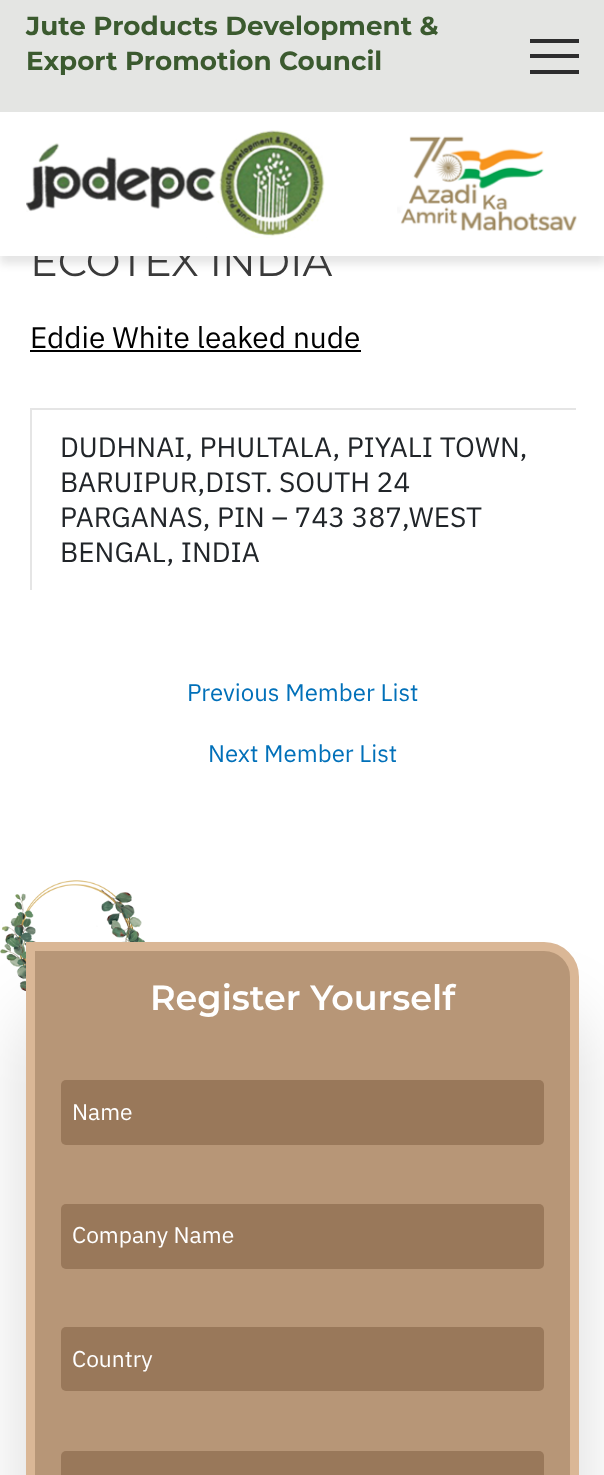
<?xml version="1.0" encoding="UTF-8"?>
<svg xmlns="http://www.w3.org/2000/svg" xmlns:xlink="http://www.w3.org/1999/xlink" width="604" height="1475">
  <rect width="100%" height="100%" fill="#ffffff" />
  <rect y="9" width="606" height="255" fill="#000000" fill-opacity="0.1" filter="blur(4.5px)" />
  <rect width="604" height="112" fill="#e4e5e3" />
  <rect x="530" y="39" width="49" height="4" fill="#2d2d2e" />
  <rect x="530" y="54" width="49" height="4" fill="#2d2d2e" />
  <rect x="530" y="70" width="49" height="4" fill="#2d2d2e" />
  <rect x="30" y="350" width="331" height="2" fill="#000000" />
  <rect x="30" y="408" width="546" height="2" fill="#e5e5e5" />
  <rect x="30" y="408" width="2" height="182" fill="#e5e5e5" />
  <image x="0" y="880" width="145" height="112" xlink:href="image3.png" />
  <rect x="26" y="1012" width="553" height="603" rx="35" fill="#000000" fill-opacity="0.15" filter="blur(35px)" />
  <path d="M 30.5 946.5 h 513.5 c 17 0 30.5 13.5 30.5 30.5 v 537.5 h -513.5 c -17 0 -30.5 -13.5 -30.5 -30.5 z" fill="#b79677" stroke="#dab796" stroke-width="9" />
  <rect x="61" y="1080" width="483" height="65" rx="5" fill="#99785a" />
  <rect x="61" y="1204" width="483" height="65" rx="5" fill="#99785a" />
  <rect x="61" y="1327" width="483" height="64" rx="5" fill="#99785a" />
  <rect x="61" y="1451" width="483" height="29" rx="5" fill="#99785a" />
  <text x="26" y="35" style="font-family: Montserrat; font-size: 26.25px; font-weight: bold; fill: #3b5a2f">Jute Products Development &amp;</text>
  <text x="26" y="70" style="font-family: Montserrat; font-size: 26.25px; font-weight: bold; fill: #3b5a2f">Export Promotion Council</text>
  <text x="30" y="276" style="font-family: Montserrat; font-size: 41.5px; fill: #3a3a3a">ECOTEX INDIA</text>
  <rect y="112" width="604" height="144" fill="#ffffff" />
  <image x="397" y="136" width="180" height="95" xlink:href="image2.png" />
  <image x="26" y="130" width="299" height="108" xlink:href="image1.png" />
  <text x="30" y="348" style="font-family: IBM Plex Sans; font-size: 29.75px; fill: #000000">Eddie White leaked nude</text>
  <text x="60" y="457" style="font-family: IBM Plex Sans; font-size: 28px; fill: #212529">DUDHNAI, PHULTALA, PIYALI TOWN,</text>
  <text x="60" y="492" style="font-family: IBM Plex Sans; font-size: 28px; fill: #212529">BARUIPUR,DIST. SOUTH 24</text>
  <text x="60" y="527" style="font-family: IBM Plex Sans; font-size: 28px; fill: #212529">PARGANAS, PIN – 743 387,WEST</text>
  <text x="60" y="562" style="font-family: IBM Plex Sans; font-size: 28px; fill: #212529">BENGAL, INDIA</text>
  <text x="187" y="701" style="font-family: IBM Plex Sans; font-size: 24px; fill: #0170b9">Previous Member List</text>
  <text x="208" y="762" style="font-family: IBM Plex Sans; font-size: 24px; fill: #0170b9">Next Member List</text>
  <text x="150" y="1010" style="font-family: Montserrat; font-size: 35px; font-weight: 600; fill: #ffffff">Register Yourself</text>
  <text x="72" y="1120" style="font-family: IBM Plex Sans; font-size: 22.75px; fill: #ffffff">Name</text>
  <text x="72" y="1243" style="font-family: IBM Plex Sans; font-size: 22.75px; fill: #ffffff">Company Name</text>
  <text x="72" y="1367" style="font-family: IBM Plex Sans; font-size: 22.75px; fill: #ffffff">Country</text>
</svg>
